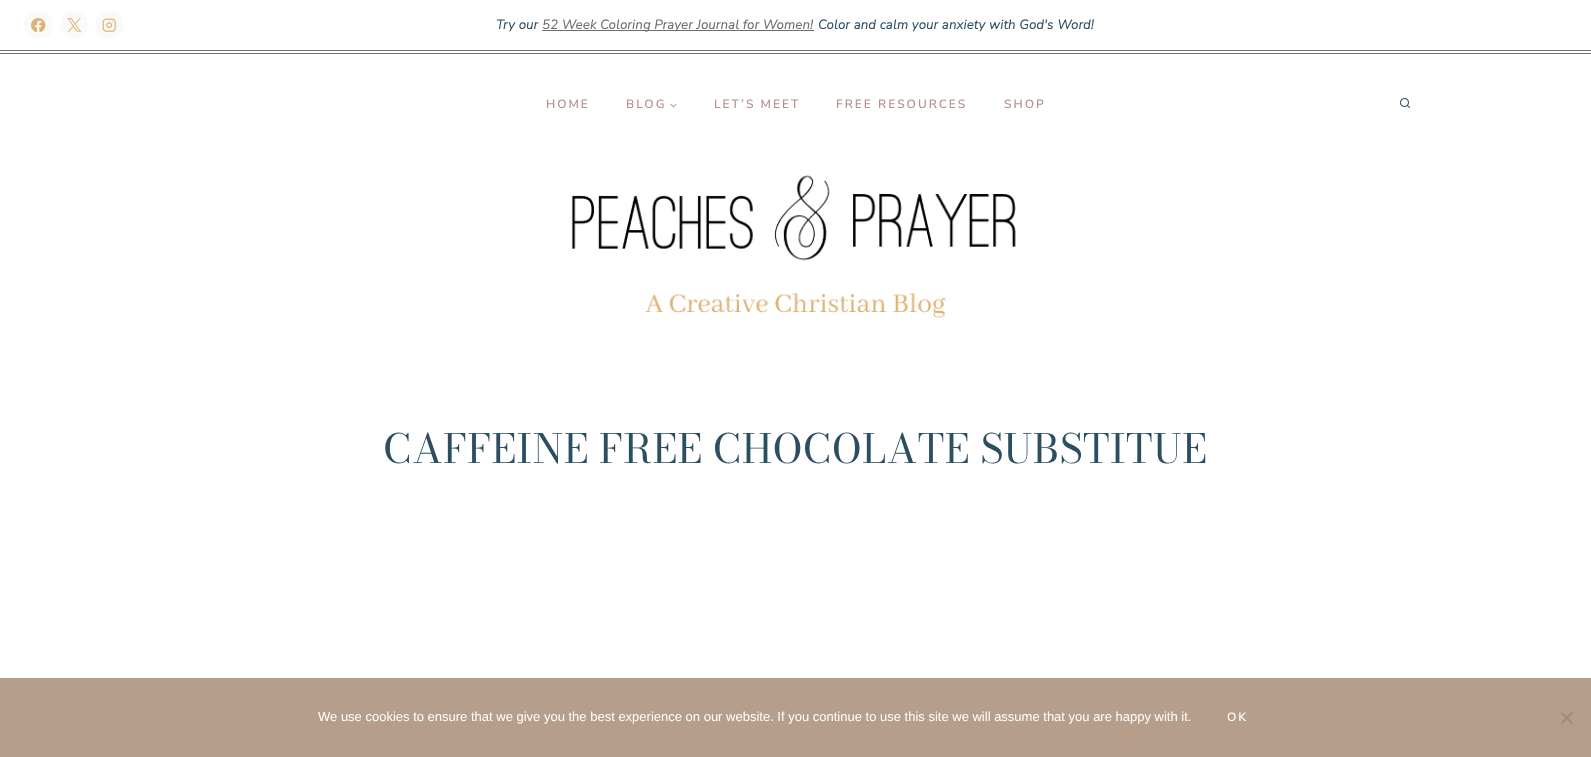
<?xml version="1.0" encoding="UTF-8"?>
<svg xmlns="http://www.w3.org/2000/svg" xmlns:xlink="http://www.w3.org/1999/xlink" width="1591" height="757">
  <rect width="100%" height="100%" fill="#ffffff" />
  <rect y="50" width="1591" height="1" fill="#6a6f6f" />
  <rect y="53" width="1591" height="1" fill="#6a6f6f" />
  <rect x="24" y="11" width="29" height="28" rx="14" fill="#fafafa" />
  <image x="31" y="18" width="15" height="14" xlink:href="image1.png" />
  <circle cx="74" cy="25" r="14" fill="#fafafa" />
  <image x="67" y="18" width="14" height="14" xlink:href="image2.png" />
  <rect x="95" y="11" width="29" height="28" rx="14" fill="#fafafa" />
  <image x="102" y="18" width="14" height="14" xlink:href="image3.png" />
  <rect x="542" y="30" width="272" height="1" fill="#6a6f6f" />
  <image x="670" y="103" width="7" height="5" xlink:href="image4.png" />
  <image x="1400" y="98" width="10" height="10" xlink:href="image5.png" />
  <image x="571" y="175" width="445" height="143" xlink:href="image6.png" />
  <rect y="678" width="1591" height="79" fill="#b59e8b" />
  <path d="M 1571.5 712 l 1.5 1.5 l -10.5 10.5 l -1.5 -1.5 z" fill="#9b8f86" />
  <path d="M 1561 713.5 l 1.5 -1.5 l 10.5 10.5 l -1.5 1.5 z" fill="#9b8f86" />
  <text x="496" y="29" style="font-family: Nunito Sans; font-size: 13px; font-weight: bold; font-style: italic; letter-spacing: 0.3px; fill: #2b4e61">Try our</text>
  <text x="542" y="29" style="font-family: Nunito Sans; font-size: 13px; font-weight: bold; font-style: italic; letter-spacing: 0.3px; fill: #6a6f6f">52 Week Coloring Prayer Journal for Women!</text>
  <text x="818" y="29" style="font-family: Nunito Sans; font-size: 13px; font-weight: bold; font-style: italic; letter-spacing: 0.3px; fill: #2b4e61">Color and calm your anxiety with God's Word!</text>
  <text x="546" y="108" style="font-family: Nunito Sans; font-size: 12px; font-weight: 600; letter-spacing: 2px; fill: #b5928c">HOME</text>
  <text x="626" y="108" style="font-family: Nunito Sans; font-size: 12px; font-weight: 600; letter-spacing: 2px; fill: #b5928c">BLOG</text>
  <text x="714" y="108" style="font-family: Nunito Sans; font-size: 12px; font-weight: 600; letter-spacing: 2px; fill: #b5928c">LET’S MEET</text>
  <text x="836" y="108" style="font-family: Nunito Sans; font-size: 12px; font-weight: 600; letter-spacing: 2px; fill: #b5928c">FREE RESOURCES</text>
  <text x="1004" y="108" style="font-family: Nunito Sans; font-size: 12px; font-weight: 600; letter-spacing: 2px; fill: #b5928c">SHOP</text>
  <text x="383" y="463" style="font-family: Bodoni Moda; font-size: 40px; letter-spacing: 0.3px; fill: #2b4e61">CAFFEINE FREE CHOCOLATE SUBSTITUE</text>
  <text x="318" y="721" style="font-family: Liberation Sans; font-size: 13px; fill: #ffffff">We use cookies to ensure that we give you the best experience on our website. If you continue to use this site we will assume that you are happy with it.</text>
  <text x="1227" y="721" style="font-family: Nunito Sans; font-size: 12px; font-weight: 600; letter-spacing: 2px; fill: #ffffff">OK</text>
</svg>
